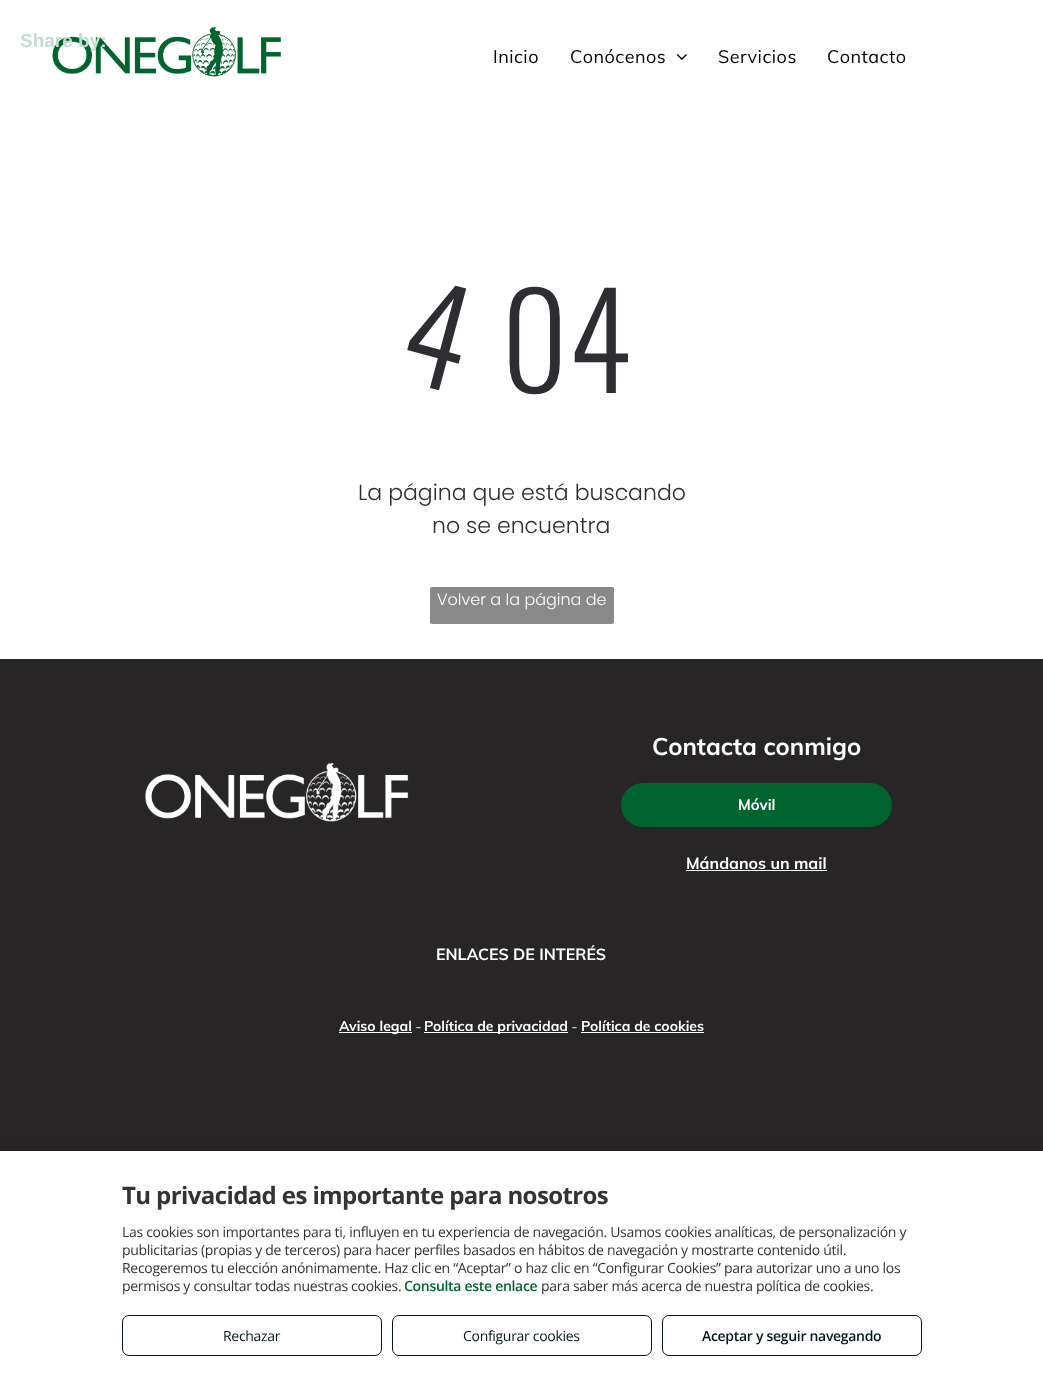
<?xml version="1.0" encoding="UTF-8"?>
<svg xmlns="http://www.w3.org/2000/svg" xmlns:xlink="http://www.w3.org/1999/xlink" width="1043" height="1376">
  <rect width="100%" height="100%" fill="#ffffff" />
  <image x="52" y="27" width="229" height="50" xlink:href="image1.png" />
  <image x="676" y="54" width="11" height="6" xlink:href="image2.png" />
  <rect x="430" y="587" width="184" height="37" rx="2" fill="#898989" />
  <rect y="659" width="1043" height="492" fill="#272525" />
  <image x="145" y="762" width="264" height="60" xlink:href="image3.png" />
  <rect x="621" y="783" width="271" height="44" rx="22" fill="#00642e" />
  <rect x="686" y="870" width="141" height="1" fill="#ffffff" />
  <rect x="339" y="1032" width="73" height="1" fill="#ffffff" />
  <rect x="424" y="1032" width="144" height="1" fill="#ffffff" />
  <rect x="581" y="1032" width="123" height="1" fill="#ffffff" />
  <rect y="1149" width="1043" height="225" fill="#000000" fill-opacity="0.1" filter="blur(5px)" />
  <rect y="1151" width="1043" height="225" fill="#ffffff" />
  <rect x="122.5" y="1315.5" width="259" height="40" rx="6.5" fill="none" stroke="#03181e" />
  <rect x="392.5" y="1315.5" width="259" height="40" rx="6.5" fill="none" stroke="#03181e" />
  <rect x="662.5" y="1315.5" width="259" height="40" rx="6.5" fill="none" stroke="#03181e" />
  <text x="20" y="47" style="font-family: Liberation Sans; font-size: 19px; font-weight: bold; fill: #c5dcd0">Share by:</text>
  <text x="493" y="63" style="font-family: Muli; font-size: 18px; letter-spacing: 0.5px; fill: #000000">Inicio</text>
  <text x="570" y="63" style="font-family: Muli; font-size: 18px; letter-spacing: 0.5px; fill: #000000">Conócenos</text>
  <text x="718" y="63" style="font-family: Muli; font-size: 18px; letter-spacing: 0.5px; fill: #000000">Servicios</text>
  <text x="827" y="63" style="font-family: Muli; font-size: 18px; letter-spacing: 0.5px; fill: #000000">Contacto</text>
  <text x="393" y="378" transform="rotate(15 393 378)" style="font-family: Oswald; font-size: 130px; font-weight: 300; fill: #2d2e32">4</text>
  <text x="501" y="393" style="font-family: Oswald; font-size: 130px; font-weight: 300; fill: #2d2e32">04</text>
  <text x="358" y="500" style="font-family: Poppins; font-size: 22px; font-weight: 300; fill: #2d2e32">La página que está buscando</text>
  <text x="432" y="533" style="font-family: Poppins; font-size: 22px; font-weight: 300; fill: #2d2e32">no se encuentra</text>
  <text x="437" y="605" style="font-family: Poppins; font-size: 16px; font-weight: 300; fill: #ffffff">Volver a la página de</text>
  <text x="652" y="755" style="font-family: Muli; font-size: 24px; font-weight: bold; fill: #ffffff">Contacta conmigo</text>
  <text x="738" y="810" style="font-family: Muli; font-size: 15px; font-weight: bold; fill: #ffffff">Móvil</text>
  <text x="686" y="869" style="font-family: Muli; font-size: 16px; font-weight: bold; fill: #ffffff">Mándanos un mail</text>
  <text x="436" y="960" style="font-family: Muli; font-size: 16px; font-weight: bold; fill: #ffffff">ENLACES DE INTERÉS</text>
  <text x="339" y="1031" style="font-family: Muli; font-size: 14px; font-weight: bold; fill: #ffffff">Aviso legal</text>
  <text x="415" y="1032" style="font-family: Muli; font-size: 16px; font-weight: 300; fill: #ffffff">-</text>
  <text x="424" y="1031" style="font-family: Muli; font-size: 14px; font-weight: bold; fill: #ffffff">Política de privacidad</text>
  <text x="571" y="1032" style="font-family: Muli; font-size: 16px; font-weight: 300; fill: #ffffff">-</text>
  <text x="581" y="1031" style="font-family: Muli; font-size: 14px; font-weight: bold; fill: #ffffff">Política de cookies</text>
  <text x="122" y="1204" style="font-family: Open Sans; font-size: 24px; font-weight: bold; letter-spacing: -0.6px; fill: #333333">Tu privacidad es importante para nosotros</text>
  <text x="122" y="1237" style="font-family: Open Sans; font-size: 14px; letter-spacing: -0.3px; fill: #333333">Las cookies son importantes para ti, influyen en tu experiencia de navegación. Usamos cookies analíticas, de personalización y</text>
  <text x="122" y="1255" style="font-family: Open Sans; font-size: 14px; letter-spacing: -0.3px; fill: #333333">publicitarias (propias y de terceros) para hacer perfiles basados en hábitos de navegación y mostrarte contenido útil.</text>
  <text x="122" y="1273" style="font-family: Open Sans; font-size: 14px; letter-spacing: -0.3px; fill: #333333">Recogeremos tu elección anónimamente. Haz clic en “Aceptar” o haz clic en “Configurar Cookies” para autorizar uno a uno los</text>
  <text x="122" y="1291" style="font-family: Open Sans; font-size: 14px; letter-spacing: -0.3px; fill: #333333">permisos y consultar todas nuestras cookies.</text>
  <text x="404" y="1291" style="font-family: Open Sans; font-size: 14px; font-weight: 600; letter-spacing: -0.3px; fill: #00642e">Consulta este enlace</text>
  <text x="541" y="1291" style="font-family: Open Sans; font-size: 14px; letter-spacing: -0.3px; fill: #333333">para saber más acerca de nuestra política de cookies.</text>
  <text x="223" y="1341" style="font-family: Open Sans; font-size: 14px; letter-spacing: -0.3px; fill: #03181e">Rechazar</text>
  <text x="463" y="1341" style="font-family: Open Sans; font-size: 14px; letter-spacing: -0.3px; fill: #03181e">Configurar cookies</text>
  <text x="702" y="1341" style="font-family: Open Sans; font-size: 14px; font-weight: 600; letter-spacing: -0.3px; fill: #03181e">Aceptar y seguir navegando</text>
</svg>
